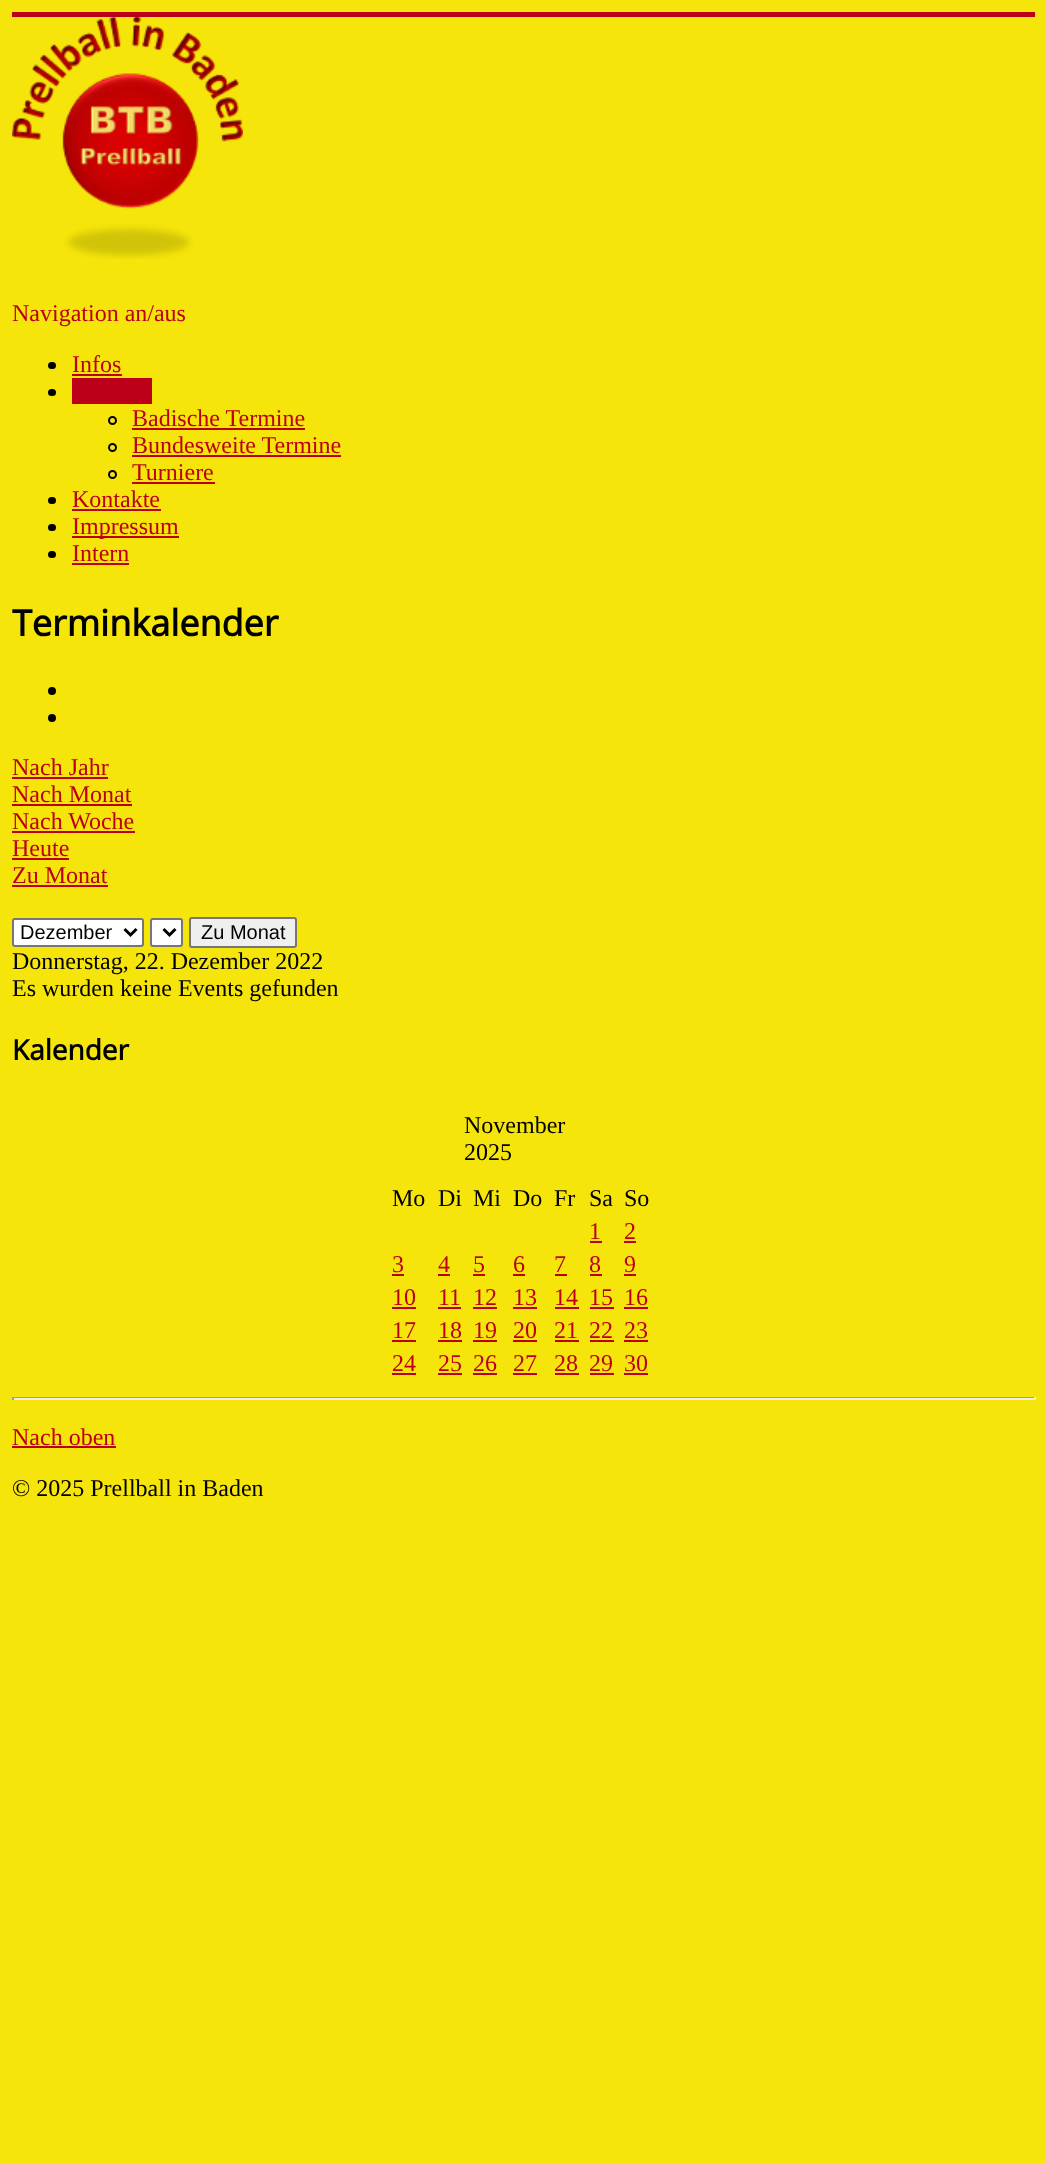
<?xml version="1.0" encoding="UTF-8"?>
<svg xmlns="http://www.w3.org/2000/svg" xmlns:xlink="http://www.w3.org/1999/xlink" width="1046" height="2163">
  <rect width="100%" height="100%" fill="#f5e50a" />
  <rect x="12" y="12" width="1023" height="5" fill="#bc0019" />
  <image x="12" y="16" width="231" height="243" xlink:href="image1.png" />
  <rect x="48" y="362" width="8" height="7" rx="3.5" fill="#000000" />
  <rect x="72" y="374" width="50" height="2" fill="#bc0019" />
  <rect x="48" y="389" width="8" height="7" rx="3.5" fill="#000000" />
  <rect x="72" y="378" width="80" height="26" fill="#bc0019" />
  <circle cx="112.5" cy="420.5" r="3.5" fill="none" stroke="#000000" stroke-width="2" />
  <rect x="132" y="428" width="173" height="2" fill="#bc0019" />
  <circle cx="112.5" cy="447.5" r="3.5" fill="none" stroke="#000000" stroke-width="2" />
  <rect x="132" y="455" width="209" height="2" fill="#bc0019" />
  <circle cx="112.5" cy="474.5" r="3.5" fill="none" stroke="#000000" stroke-width="2" />
  <rect x="132" y="482" width="83" height="2" fill="#bc0019" />
  <rect x="48" y="497" width="8" height="7" rx="3.5" fill="#000000" />
  <rect x="72" y="509" width="89" height="2" fill="#bc0019" />
  <rect x="48" y="524" width="8" height="7" rx="3.5" fill="#000000" />
  <rect x="72" y="536" width="107" height="2" fill="#bc0019" />
  <rect x="48" y="551" width="8" height="7" rx="3.5" fill="#000000" />
  <rect x="72" y="563" width="57" height="2" fill="#bc0019" />
  <circle cx="52" cy="691" r="4" fill="#000000" />
  <circle cx="52" cy="718" r="4" fill="#000000" />
  <rect x="12" y="777" width="96" height="2" fill="#bc0019" />
  <rect x="12" y="804" width="120" height="2" fill="#bc0019" />
  <rect x="12" y="831" width="123" height="2" fill="#bc0019" />
  <rect x="12" y="858" width="57" height="2" fill="#bc0019" />
  <rect x="12" y="885" width="96" height="2" fill="#bc0019" />
  <rect x="13" y="919" width="130" height="27" rx="2" fill="#ffffff" stroke="#767676" stroke-width="2" />
  <path d="M 124.5 929 l 6 6 l 6 -6" fill="none" stroke="#000000" stroke-width="3" />
  <rect x="151" y="919" width="31" height="27" rx="2" fill="#ffffff" stroke="#767676" stroke-width="2" />
  <path d="M 163.5 929 l 6 6 l 6 -6" fill="none" stroke="#000000" stroke-width="3" />
  <rect x="190" y="918" width="106" height="29" rx="2" fill="#efefef" stroke="#767676" stroke-width="2" />
  <rect x="590" y="1241" width="12" height="2" fill="#bc0019" />
  <rect x="624" y="1241" width="12" height="2" fill="#bc0019" />
  <rect x="392" y="1274" width="12" height="2" fill="#bc0019" />
  <rect x="438" y="1274" width="12" height="2" fill="#bc0019" />
  <rect x="473" y="1274" width="12" height="2" fill="#bc0019" />
  <rect x="513" y="1274" width="12" height="2" fill="#bc0019" />
  <rect x="555" y="1274" width="12" height="2" fill="#bc0019" />
  <rect x="590" y="1274" width="12" height="2" fill="#bc0019" />
  <rect x="624" y="1274" width="12" height="2" fill="#bc0019" />
  <rect x="392" y="1307" width="24" height="2" fill="#bc0019" />
  <rect x="438" y="1307" width="23" height="2" fill="#bc0019" />
  <rect x="473" y="1307" width="24" height="2" fill="#bc0019" />
  <rect x="513" y="1307" width="24" height="2" fill="#bc0019" />
  <rect x="555" y="1307" width="24" height="2" fill="#bc0019" />
  <rect x="590" y="1307" width="24" height="2" fill="#bc0019" />
  <rect x="624" y="1307" width="24" height="2" fill="#bc0019" />
  <rect x="392" y="1340" width="24" height="2" fill="#bc0019" />
  <rect x="438" y="1340" width="24" height="2" fill="#bc0019" />
  <rect x="473" y="1340" width="24" height="2" fill="#bc0019" />
  <rect x="513" y="1340" width="24" height="2" fill="#bc0019" />
  <rect x="555" y="1340" width="24" height="2" fill="#bc0019" />
  <rect x="590" y="1340" width="24" height="2" fill="#bc0019" />
  <rect x="624" y="1340" width="24" height="2" fill="#bc0019" />
  <rect x="392" y="1373" width="24" height="2" fill="#bc0019" />
  <rect x="438" y="1373" width="24" height="2" fill="#bc0019" />
  <rect x="473" y="1373" width="24" height="2" fill="#bc0019" />
  <rect x="513" y="1373" width="24" height="2" fill="#bc0019" />
  <rect x="555" y="1373" width="24" height="2" fill="#bc0019" />
  <rect x="590" y="1373" width="24" height="2" fill="#bc0019" />
  <rect x="624" y="1373" width="24" height="2" fill="#bc0019" />
  <rect x="12" y="1397" width="1023" height="1" fill="#9f9f9f" />
  <rect x="1034" y="1397" width="2" height="3" fill="#eeeeee" />
  <rect x="12" y="1398" width="1023" height="2" fill="#eeeeee" />
  <rect x="12" y="1397" width="2" height="3" fill="#9f9f9f" />
  <rect x="12" y="1446" width="104" height="2" fill="#bc0019" />
  <text x="12" y="321" style="font-family: Liberation Serif; font-size: 24px; fill: #bc0019">Navigation an/aus</text>
  <text x="72" y="372" style="font-family: Liberation Serif; font-size: 24px; fill: #bc0019">Infos</text>
  <text x="132" y="426" style="font-family: Liberation Serif; font-size: 24px; fill: #bc0019">Badische Termine</text>
  <text x="132" y="453" style="font-family: Liberation Serif; font-size: 24px; fill: #bc0019">Bundesweite Termine</text>
  <text x="132" y="480" style="font-family: Liberation Serif; font-size: 24px; fill: #bc0019">Turniere</text>
  <text x="72" y="507" style="font-family: Liberation Serif; font-size: 24px; fill: #bc0019">Kontakte</text>
  <text x="72" y="534" style="font-family: Liberation Serif; font-size: 24px; fill: #bc0019">Impressum</text>
  <text x="72" y="561" style="font-family: Liberation Serif; font-size: 24px; fill: #bc0019">Intern</text>
  <text x="12" y="636" style="font-family: Open Sans; font-size: 36px; font-weight: bold; fill: #000000">Terminkalender</text>
  <text x="12" y="775" style="font-family: Liberation Serif; font-size: 24px; fill: #bc0019">Nach Jahr</text>
  <text x="12" y="802" style="font-family: Liberation Serif; font-size: 24px; fill: #bc0019">Nach Monat</text>
  <text x="12" y="829" style="font-family: Liberation Serif; font-size: 24px; fill: #bc0019">Nach Woche</text>
  <text x="12" y="856" style="font-family: Liberation Serif; font-size: 24px; fill: #bc0019">Heute</text>
  <text x="12" y="883" style="font-family: Liberation Serif; font-size: 24px; fill: #bc0019">Zu Monat</text>
  <text x="20" y="939" style="font-family: Liberation Sans; font-size: 20px; fill: #000000">Dezember</text>
  <text x="201" y="939" style="font-family: Liberation Sans; font-size: 20px; fill: #000000">Zu Monat</text>
  <text x="12" y="969" style="font-family: Liberation Serif; font-size: 24px; fill: #000000">Donnerstag, 22. Dezember 2022</text>
  <text x="12" y="996" style="font-family: Liberation Serif; font-size: 24px; fill: #000000">Es wurden keine Events gefunden</text>
  <text x="12" y="1060" style="font-family: Open Sans; font-size: 28px; font-weight: bold; fill: #000000">Kalender</text>
  <text x="464" y="1133" style="font-family: Liberation Serif; font-size: 24px; fill: #000000">November</text>
  <text x="464" y="1160" style="font-family: Liberation Serif; font-size: 24px; fill: #000000">2025</text>
  <text x="392" y="1206" style="font-family: Liberation Serif; font-size: 24px; fill: #000000">Mo</text>
  <text x="438" y="1206" style="font-family: Liberation Serif; font-size: 24px; fill: #000000">Di</text>
  <text x="473" y="1206" style="font-family: Liberation Serif; font-size: 24px; fill: #000000">Mi</text>
  <text x="513" y="1206" style="font-family: Liberation Serif; font-size: 24px; fill: #000000">Do</text>
  <text x="554" y="1206" style="font-family: Liberation Serif; font-size: 24px; fill: #000000">Fr</text>
  <text x="589" y="1206" style="font-family: Liberation Serif; font-size: 24px; fill: #000000">Sa</text>
  <text x="624" y="1206" style="font-family: Liberation Serif; font-size: 24px; fill: #000000">So</text>
  <text x="589" y="1239" style="font-family: Liberation Serif; font-size: 24px; fill: #bc0019">1</text>
  <text x="624" y="1239" style="font-family: Liberation Serif; font-size: 24px; fill: #bc0019">2</text>
  <text x="392" y="1272" style="font-family: Liberation Serif; font-size: 24px; fill: #bc0019">3</text>
  <text x="438" y="1272" style="font-family: Liberation Serif; font-size: 24px; fill: #bc0019">4</text>
  <text x="473" y="1272" style="font-family: Liberation Serif; font-size: 24px; fill: #bc0019">5</text>
  <text x="513" y="1272" style="font-family: Liberation Serif; font-size: 24px; fill: #bc0019">6</text>
  <text x="554" y="1272" style="font-family: Liberation Serif; font-size: 24px; fill: #bc0019">7</text>
  <text x="589" y="1272" style="font-family: Liberation Serif; font-size: 24px; fill: #bc0019">8</text>
  <text x="624" y="1272" style="font-family: Liberation Serif; font-size: 24px; fill: #bc0019">9</text>
  <text x="392" y="1305" style="font-family: Liberation Serif; font-size: 24px; fill: #bc0019">10</text>
  <text x="438" y="1305" style="font-family: Liberation Serif; font-size: 24px; fill: #bc0019">11</text>
  <text x="473" y="1305" style="font-family: Liberation Serif; font-size: 24px; fill: #bc0019">12</text>
  <text x="513" y="1305" style="font-family: Liberation Serif; font-size: 24px; fill: #bc0019">13</text>
  <text x="554" y="1305" style="font-family: Liberation Serif; font-size: 24px; fill: #bc0019">14</text>
  <text x="589" y="1305" style="font-family: Liberation Serif; font-size: 24px; fill: #bc0019">15</text>
  <text x="624" y="1305" style="font-family: Liberation Serif; font-size: 24px; fill: #bc0019">16</text>
  <text x="392" y="1338" style="font-family: Liberation Serif; font-size: 24px; fill: #bc0019">17</text>
  <text x="438" y="1338" style="font-family: Liberation Serif; font-size: 24px; fill: #bc0019">18</text>
  <text x="473" y="1338" style="font-family: Liberation Serif; font-size: 24px; fill: #bc0019">19</text>
  <text x="513" y="1338" style="font-family: Liberation Serif; font-size: 24px; fill: #bc0019">20</text>
  <text x="554" y="1338" style="font-family: Liberation Serif; font-size: 24px; fill: #bc0019">21</text>
  <text x="589" y="1338" style="font-family: Liberation Serif; font-size: 24px; fill: #bc0019">22</text>
  <text x="624" y="1338" style="font-family: Liberation Serif; font-size: 24px; fill: #bc0019">23</text>
  <text x="392" y="1371" style="font-family: Liberation Serif; font-size: 24px; fill: #bc0019">24</text>
  <text x="438" y="1371" style="font-family: Liberation Serif; font-size: 24px; fill: #bc0019">25</text>
  <text x="473" y="1371" style="font-family: Liberation Serif; font-size: 24px; fill: #bc0019">26</text>
  <text x="513" y="1371" style="font-family: Liberation Serif; font-size: 24px; fill: #bc0019">27</text>
  <text x="554" y="1371" style="font-family: Liberation Serif; font-size: 24px; fill: #bc0019">28</text>
  <text x="589" y="1371" style="font-family: Liberation Serif; font-size: 24px; fill: #bc0019">29</text>
  <text x="624" y="1371" style="font-family: Liberation Serif; font-size: 24px; fill: #bc0019">30</text>
  <text x="12" y="1445" style="font-family: Liberation Serif; font-size: 24px; fill: #bc0019">Nach oben</text>
  <text x="12" y="1496" style="font-family: Liberation Serif; font-size: 24px; fill: #000000">© 2025 Prellball in Baden</text>
</svg>
